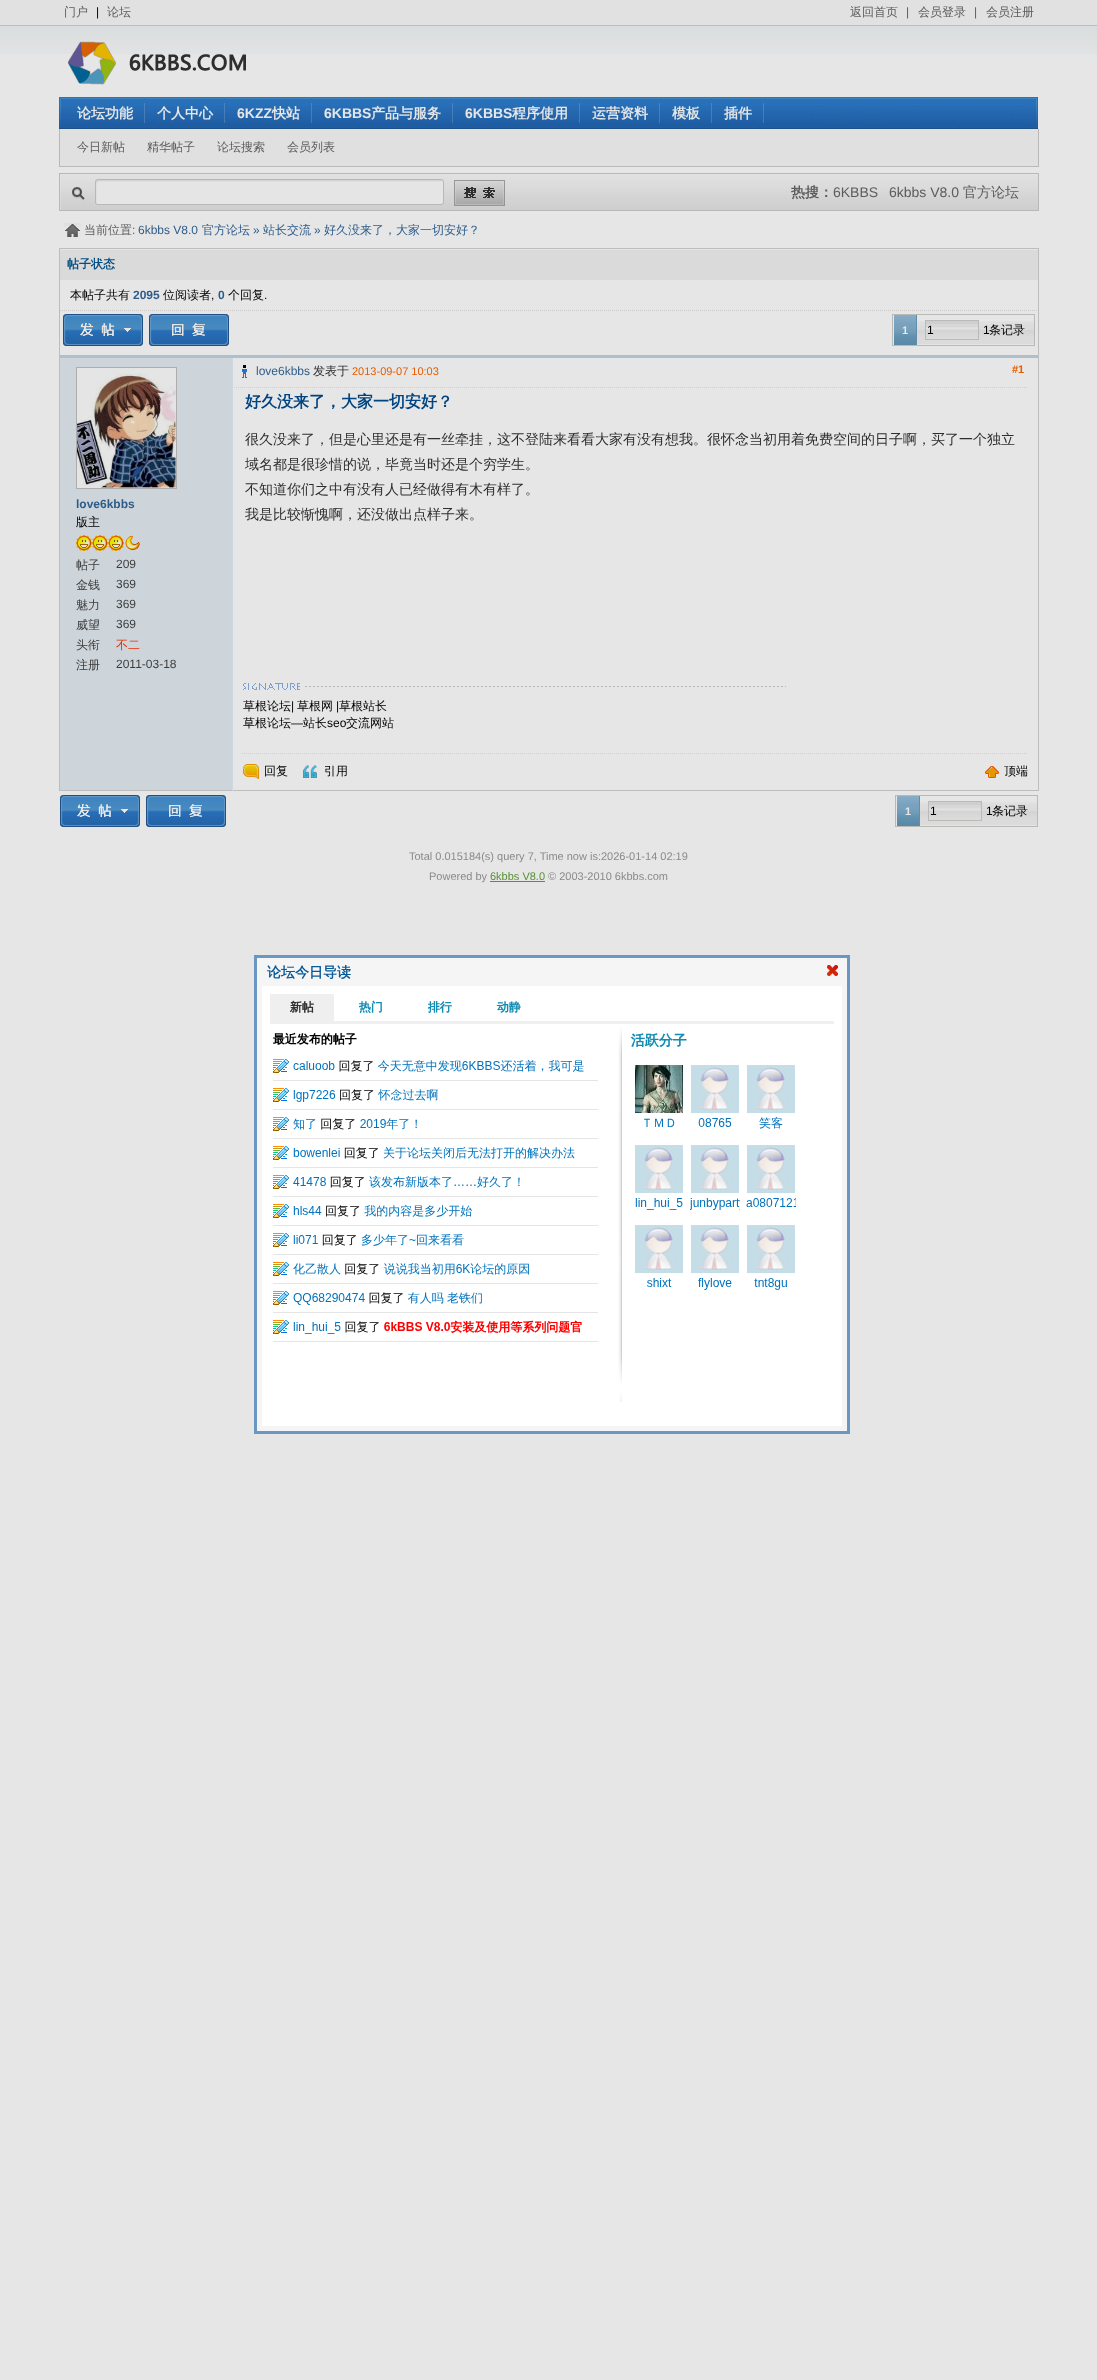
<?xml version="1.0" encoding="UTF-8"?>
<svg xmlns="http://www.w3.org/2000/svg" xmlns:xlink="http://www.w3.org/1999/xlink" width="1097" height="2380">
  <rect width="100%" height="100%" fill="#e6e6e6" />
  <image x="0" y="26" width="1097" height="28" xlink:href="image1.png" />
  <rect width="1097" height="25" fill="#e1e1e1" />
  <rect y="25" width="1097" height="1" fill="#bdbdbd" />
  <image x="67" y="41" width="179" height="44" xlink:href="image2.png" />
  <image x="59" y="97" width="6" height="32" xlink:href="image3.png" />
  <image x="65" y="97" width="968" height="32" xlink:href="image4.png" />
  <image x="144" y="97" width="1" height="26" xlink:href="image5.png" />
  <image x="224" y="97" width="1" height="26" xlink:href="image5.png" />
  <image x="311" y="97" width="1" height="26" xlink:href="image5.png" />
  <image x="452" y="97" width="1" height="26" xlink:href="image5.png" />
  <image x="579" y="97" width="1" height="26" xlink:href="image5.png" />
  <image x="659" y="97" width="1" height="26" xlink:href="image5.png" />
  <image x="711" y="97" width="1" height="26" xlink:href="image5.png" />
  <image x="763" y="97" width="1" height="26" xlink:href="image5.png" />
  <image x="1033" y="97" width="5" height="32" xlink:href="image6.png" />
  <rect x="60" y="129" width="978" height="37" fill="#e0e0e0" />
  <rect x="1038" y="129" width="1" height="38" fill="#b9b9b9" />
  <rect x="59" y="166" width="980" height="1" fill="#b9b9b9" />
  <rect x="59" y="129" width="1" height="38" fill="#b9b9b9" />
  <image x="59" y="173" width="980" height="38" xlink:href="image7.png" />
  <image x="454" y="180" width="51" height="26" xlink:href="image8.png" />
  <rect x="1038" y="174" width="1" height="36" fill="#b9b9b9" />
  <image x="64" y="223" width="17" height="14" xlink:href="image9.png" />
  <rect x="59.5" y="248.5" width="979" height="542" fill="none" stroke="#bdbdbd" />
  <rect x="60" y="250" width="978" height="30" fill="#dadada" />
  <path d="M 60 310.5 h 978" fill="none" stroke="#cacaca" stroke-dasharray="1 1" />
  <image x="63" y="314" width="80" height="32" xlink:href="image10.png" />
  <image x="149" y="314" width="80" height="32" xlink:href="image11.png" />
  <rect x="892" y="314" width="143" height="1" fill="#b9bab6" />
  <rect x="892" y="345" width="25" height="1" fill="#b9bab6" />
  <rect x="892" y="314" width="1" height="32" fill="#b9bab6" />
  <image x="894" y="315" width="22" height="30" xlink:href="image12.png" />
  <rect x="916" y="315" width="1" height="30" fill="#608fad" />
  <image x="917" y="321" width="117" height="24" xlink:href="image13.png" />
  <rect x="1034" y="314" width="1" height="32" fill="#b9bab6" />
  <rect x="917" y="345" width="118" height="1" fill="#b9bab6" />
  <image x="926" y="321" width="52" height="8" xlink:href="image14.png" />
  <rect x="925.5" y="320.5" width="53" height="19" fill="none" stroke="#babab9" />
  <rect x="232" y="356" width="1" height="435" fill="#cdd7dd" />
  <rect x="60" y="355" width="978" height="3" fill="#afc0cc" />
  <path d="M 234 387.5 h 704" fill="none" stroke="#cfd0cb" stroke-dasharray="1 1" />
  <image x="242" y="365" width="5" height="13" xlink:href="image15.png" />
  <path d="M 938 387.5 h 90" fill="none" stroke="#cfd0cb" stroke-dasharray="1 1" />
  <rect x="60" y="358" width="172" height="432" fill="#ced5da" />
  <rect x="76.5" y="367.5" width="100" height="121" fill="none" stroke="#adadad" />
  <image x="77" y="368" width="99" height="120" xlink:href="image16.png" />
  <image x="76" y="535" width="16" height="16" xlink:href="image17.png" />
  <image x="92" y="535" width="16" height="16" xlink:href="image17.png" />
  <image x="108" y="535" width="16" height="16" xlink:href="image17.png" />
  <image x="125" y="535" width="15" height="15" xlink:href="image18.png" />
  <image x="243" y="683" width="543" height="7" xlink:href="image19.png" />
  <path d="M 242 753.5 h 786" fill="none" stroke="#cfd0cb" stroke-dasharray="1 1" />
  <image x="243" y="764" width="16" height="15" xlink:href="image20.png" />
  <image x="303" y="765" width="14" height="13" xlink:href="image21.png" />
  <image x="985" y="766" width="14" height="12" xlink:href="image22.png" />
  <image x="60" y="795" width="80" height="32" xlink:href="image10.png" />
  <image x="146" y="795" width="80" height="32" xlink:href="image11.png" />
  <rect x="895" y="795" width="143" height="1" fill="#b9bab6" />
  <rect x="895" y="826" width="25" height="1" fill="#b9bab6" />
  <rect x="895" y="795" width="1" height="32" fill="#b9bab6" />
  <image x="897" y="796" width="22" height="30" xlink:href="image12.png" />
  <rect x="919" y="796" width="1" height="30" fill="#608fad" />
  <image x="920" y="802" width="117" height="24" xlink:href="image13.png" />
  <rect x="1037" y="795" width="1" height="32" fill="#b9bab6" />
  <rect x="920" y="826" width="118" height="1" fill="#b9bab6" />
  <image x="929" y="802" width="52" height="8" xlink:href="image14.png" />
  <rect x="928.5" y="801.5" width="53" height="19" fill="none" stroke="#babab9" />
  <rect x="490" y="881" width="55" height="1" fill="#589233" />
  <rect x="262" y="986" width="580" height="440" fill="#ffffff" />
  <rect x="255.5" y="956.5" width="593" height="476" fill="none" stroke="#6b97c2" stroke-width="3" />
  <rect x="257" y="958" width="590" height="23" fill="#f5f5f5" />
  <image x="827" y="965" width="11" height="11" xlink:href="image23.png" />
  <rect x="259.5" y="983.5" width="585" height="445" fill="none" stroke="#f5f5f5" stroke-width="5" />
  <image x="270" y="994" width="564" height="408" xlink:href="image24.png" />
  <text x="64" y="16" style="font-family: WenQuanYi Zen Hei; font-size: 12px; font-weight: 500; fill: #5c5c5c">门户</text>
  <text x="96" y="16" style="font-family: Liberation Sans; font-size: 12px; fill: #000000">|</text>
  <text x="107" y="16" style="font-family: WenQuanYi Zen Hei; font-size: 12px; font-weight: 500; fill: #5c5c5c">论坛</text>
  <text x="850" y="16" style="font-family: WenQuanYi Zen Hei; font-size: 12px; font-weight: 500; fill: #5c5c5c">返回首页</text>
  <text x="906" y="16" style="font-family: Liberation Sans; font-size: 12px; fill: #5c5c5c">|</text>
  <text x="918" y="16" style="font-family: WenQuanYi Zen Hei; font-size: 12px; font-weight: 500; fill: #5c5c5c">会员登录</text>
  <text x="974" y="16" style="font-family: Liberation Sans; font-size: 12px; fill: #5c5c5c">|</text>
  <text x="986" y="16" style="font-family: WenQuanYi Zen Hei; font-size: 12px; font-weight: 500; fill: #5c5c5c">会员注册</text>
  <text x="77" y="118" style="font-family: WenQuanYi Zen Hei; font-size: 14px; font-weight: bold; fill: #e6e6e6">论坛功能</text>
  <text x="157" y="118" style="font-family: WenQuanYi Zen Hei; font-size: 14px; font-weight: bold; fill: #e6e6e6">个人中心</text>
  <text x="237" y="118" style="font-family: Liberation Sans; font-size: 14px; font-weight: bold; fill: #e6e6e6">6KZZ</text>
  <text x="272" y="118" style="font-family: WenQuanYi Zen Hei; font-size: 14px; font-weight: bold; fill: #e6e6e6">快站</text>
  <text x="324" y="118" style="font-family: Liberation Sans; font-size: 14px; font-weight: bold; fill: #e6e6e6">6KBBS</text>
  <text x="371" y="118" style="font-family: WenQuanYi Zen Hei; font-size: 14px; font-weight: bold; fill: #e6e6e6">产品与服务</text>
  <text x="465" y="118" style="font-family: Liberation Sans; font-size: 14px; font-weight: bold; fill: #e6e6e6">6KBBS</text>
  <text x="512" y="118" style="font-family: WenQuanYi Zen Hei; font-size: 14px; font-weight: bold; fill: #e6e6e6">程序使用</text>
  <text x="592" y="118" style="font-family: WenQuanYi Zen Hei; font-size: 14px; font-weight: bold; fill: #e6e6e6">运营资料</text>
  <text x="672" y="118" style="font-family: WenQuanYi Zen Hei; font-size: 14px; font-weight: bold; fill: #e6e6e6">模板</text>
  <text x="724" y="118" style="font-family: WenQuanYi Zen Hei; font-size: 14px; font-weight: bold; fill: #e6e6e6">插件</text>
  <text x="77" y="151" style="font-family: WenQuanYi Zen Hei; font-size: 12px; font-weight: 500; fill: #5c5c5c">今日新帖</text>
  <text x="147" y="151" style="font-family: WenQuanYi Zen Hei; font-size: 12px; font-weight: 500; fill: #5c5c5c">精华帖子</text>
  <text x="217" y="151" style="font-family: WenQuanYi Zen Hei; font-size: 12px; font-weight: 500; fill: #5c5c5c">论坛搜索</text>
  <text x="287" y="151" style="font-family: WenQuanYi Zen Hei; font-size: 12px; font-weight: 500; fill: #5c5c5c">会员列表</text>
  <text x="791" y="197" style="font-family: WenQuanYi Zen Hei; font-size: 14px; font-weight: bold; fill: #5c5c5c">热搜：</text>
  <text x="833" y="197" style="font-family: Liberation Sans; font-size: 14px; fill: #5c5c5c">6KBBS</text>
  <text x="889" y="197" style="font-family: Liberation Sans; font-size: 14px; fill: #5c5c5c">6kbbs V8.0</text>
  <text x="963" y="197" style="font-family: WenQuanYi Zen Hei; font-size: 14px; font-weight: 500; fill: #5c5c5c">官方论坛</text>
  <text x="84" y="234" style="font-family: WenQuanYi Zen Hei; font-size: 12px; font-weight: 500; fill: #5c5c5c">当前位置</text>
  <text x="132" y="234" style="font-family: Liberation Sans; font-size: 12px; fill: #5c5c5c">:</text>
  <text x="138" y="234" style="font-family: Liberation Sans; font-size: 12px; fill: #2e5c8a">6kbbs V8.0</text>
  <text x="202" y="234" style="font-family: WenQuanYi Zen Hei; font-size: 12px; font-weight: 500; fill: #2e5c8a">官方论坛</text>
  <text x="253" y="234" style="font-family: Liberation Sans; font-size: 12px; fill: #2e5c8a">»</text>
  <text x="263" y="234" style="font-family: WenQuanYi Zen Hei; font-size: 12px; font-weight: 500; fill: #2e5c8a">站长交流</text>
  <text x="314" y="234" style="font-family: Liberation Sans; font-size: 12px; fill: #2e5c8a">»</text>
  <text x="324" y="234" style="font-family: WenQuanYi Zen Hei; font-size: 12px; font-weight: 500; fill: #2e5c8a">好久没来了，大家一切安好？</text>
  <text x="67" y="268" style="font-family: WenQuanYi Zen Hei; font-size: 12px; font-weight: bold; fill: #054e83">帖子状态</text>
  <text x="70" y="299" style="font-family: WenQuanYi Zen Hei; font-size: 12px; font-weight: 500; fill: #000000">本帖子共有</text>
  <text x="133" y="299" style="font-family: Liberation Sans; font-size: 12px; font-weight: bold; fill: #2e5c8a">2095</text>
  <text x="163" y="299" style="font-family: WenQuanYi Zen Hei; font-size: 12px; font-weight: 500; fill: #000000">位阅读者</text>
  <text x="211" y="299" style="font-family: Liberation Sans; font-size: 12px; fill: #000000">,</text>
  <text x="218" y="299" style="font-family: Liberation Sans; font-size: 12px; font-weight: bold; fill: #2e5c8a">0</text>
  <text x="228" y="299" style="font-family: WenQuanYi Zen Hei; font-size: 12px; font-weight: 500; fill: #000000">个回复</text>
  <text x="264" y="299" style="font-family: Liberation Sans; font-size: 12px; fill: #000000">.</text>
  <text x="902" y="334" style="font-family: Liberation Sans; font-size: 11px; font-weight: bold; fill: #e6e6e6">1</text>
  <text x="927" y="334" style="font-family: Liberation Sans; font-size: 12px; fill: #000000">1</text>
  <text x="983" y="334" style="font-family: Liberation Sans; font-size: 12px; fill: #000000">1</text>
  <text x="989" y="334" style="font-family: WenQuanYi Zen Hei; font-size: 12px; font-weight: 500; fill: #000000">条记录</text>
  <text x="256" y="375" style="font-family: Liberation Sans; font-size: 12px; fill: #2e5c8a">love6kbbs</text>
  <text x="313" y="375" style="font-family: WenQuanYi Zen Hei; font-size: 12px; font-weight: 500; fill: #2e2e2e">发表于</text>
  <text x="352" y="375" style="font-family: Liberation Sans; font-size: 11px; fill: #e65c00">2013-09-07 10:03</text>
  <text x="1012" y="373" style="font-family: Liberation Sans; font-size: 11px; font-weight: bold; fill: #e65c00">#1</text>
  <text x="245" y="407" style="font-family: WenQuanYi Zen Hei; font-size: 16px; font-weight: bold; fill: #014482">好久没来了，大家一切安好？</text>
  <text x="245" y="444" style="font-family: WenQuanYi Zen Hei; font-size: 14px; font-weight: 500; fill: #2e2e2e">很久没来了，但是心里还是有一丝牵挂，这不登陆来看看大家有没有想我。很怀念当初用着免费空间的日子啊，买了一个独立</text>
  <text x="245" y="469" style="font-family: WenQuanYi Zen Hei; font-size: 14px; font-weight: 500; fill: #2e2e2e">域名都是很珍惜的说，毕竟当时还是个穷学生。</text>
  <text x="245" y="494" style="font-family: WenQuanYi Zen Hei; font-size: 14px; font-weight: 500; fill: #2e2e2e">不知道你们之中有没有人已经做得有木有样了。</text>
  <text x="245" y="519" style="font-family: WenQuanYi Zen Hei; font-size: 14px; font-weight: 500; fill: #2e2e2e">我是比较惭愧啊，还没做出点样子来。</text>
  <text x="76" y="508" style="font-family: Liberation Sans; font-size: 12px; font-weight: bold; fill: #2e5c8a">love6kbbs</text>
  <text x="76" y="526" style="font-family: WenQuanYi Zen Hei; font-size: 12px; font-weight: 500; fill: #000000">版主</text>
  <text x="76" y="569" style="font-family: WenQuanYi Zen Hei; font-size: 12px; font-weight: 500; fill: #3d3d3d">帖子</text>
  <text x="116" y="568" style="font-family: Liberation Sans; font-size: 12px; fill: #3d3d3d">209</text>
  <text x="76" y="589" style="font-family: WenQuanYi Zen Hei; font-size: 12px; font-weight: 500; fill: #3d3d3d">金钱</text>
  <text x="116" y="588" style="font-family: Liberation Sans; font-size: 12px; fill: #3d3d3d">369</text>
  <text x="76" y="609" style="font-family: WenQuanYi Zen Hei; font-size: 12px; font-weight: 500; fill: #3d3d3d">魅力</text>
  <text x="116" y="608" style="font-family: Liberation Sans; font-size: 12px; fill: #3d3d3d">369</text>
  <text x="76" y="629" style="font-family: WenQuanYi Zen Hei; font-size: 12px; font-weight: 500; fill: #3d3d3d">威望</text>
  <text x="116" y="628" style="font-family: Liberation Sans; font-size: 12px; fill: #3d3d3d">369</text>
  <text x="76" y="649" style="font-family: WenQuanYi Zen Hei; font-size: 12px; font-weight: 500; fill: #3d3d3d">头衔</text>
  <text x="116" y="649" style="font-family: WenQuanYi Zen Hei; font-size: 12px; font-weight: 500; fill: #e62e00">不二</text>
  <text x="76" y="669" style="font-family: WenQuanYi Zen Hei; font-size: 12px; font-weight: 500; fill: #3d3d3d">注册</text>
  <text x="116" y="668" style="font-family: Liberation Sans; font-size: 12px; fill: #3d3d3d">2011-03-18</text>
  <text x="243" y="710" style="font-family: WenQuanYi Zen Hei; font-size: 12px; font-weight: 500; fill: #000000">草根论坛</text>
  <text x="291" y="710" style="font-family: Liberation Sans; font-size: 12px; fill: #000000">|</text>
  <text x="297" y="710" style="font-family: WenQuanYi Zen Hei; font-size: 12px; font-weight: 500; fill: #000000">草根网</text>
  <text x="336" y="710" style="font-family: Liberation Sans; font-size: 12px; fill: #000000">|</text>
  <text x="339" y="710" style="font-family: WenQuanYi Zen Hei; font-size: 12px; font-weight: 500; fill: #000000">草根站长</text>
  <text x="243" y="727" style="font-family: WenQuanYi Zen Hei; font-size: 12px; font-weight: 500; fill: #000000">草根论坛</text>
  <text x="291" y="727" style="font-family: Liberation Sans; font-size: 12px; fill: #000000">—</text>
  <text x="303" y="727" style="font-family: WenQuanYi Zen Hei; font-size: 12px; font-weight: 500; fill: #000000">站长</text>
  <text x="327" y="727" style="font-family: Liberation Sans; font-size: 12px; fill: #000000">seo</text>
  <text x="346" y="727" style="font-family: WenQuanYi Zen Hei; font-size: 12px; font-weight: 500; fill: #000000">交流网站</text>
  <text x="264" y="775" style="font-family: WenQuanYi Zen Hei; font-size: 12px; font-weight: 500; fill: #000000">回复</text>
  <text x="324" y="775" style="font-family: WenQuanYi Zen Hei; font-size: 12px; font-weight: 500; fill: #000000">引用</text>
  <text x="1004" y="775" style="font-family: WenQuanYi Zen Hei; font-size: 12px; font-weight: 500; fill: #000000">顶端</text>
  <text x="905" y="815" style="font-family: Liberation Sans; font-size: 11px; font-weight: bold; fill: #e6e6e6">1</text>
  <text x="930" y="815" style="font-family: Liberation Sans; font-size: 12px; fill: #000000">1</text>
  <text x="986" y="815" style="font-family: Liberation Sans; font-size: 12px; fill: #000000">1</text>
  <text x="992" y="815" style="font-family: WenQuanYi Zen Hei; font-size: 12px; font-weight: 500; fill: #000000">条记录</text>
  <text x="409" y="860" style="font-family: Liberation Sans; font-size: 11px; fill: #8a8a8a">Total 0.015184(s) query 7, Time now is:2026-01-14 02:19</text>
  <text x="429" y="880" style="font-family: Liberation Sans; font-size: 11px; fill: #8a8a8a">Powered by</text>
  <text x="490" y="880" style="font-family: Liberation Sans; font-size: 11px; fill: #589233">6kbbs V8.0</text>
  <text x="548" y="880" style="font-family: Liberation Sans; font-size: 11px; fill: #8a8a8a">© 2003-2010 6kbbs.com</text>
  <text x="267" y="977" style="font-family: WenQuanYi Zen Hei; font-size: 14px; font-weight: bold; fill: #085a99">论坛今日导读</text>
</svg>
